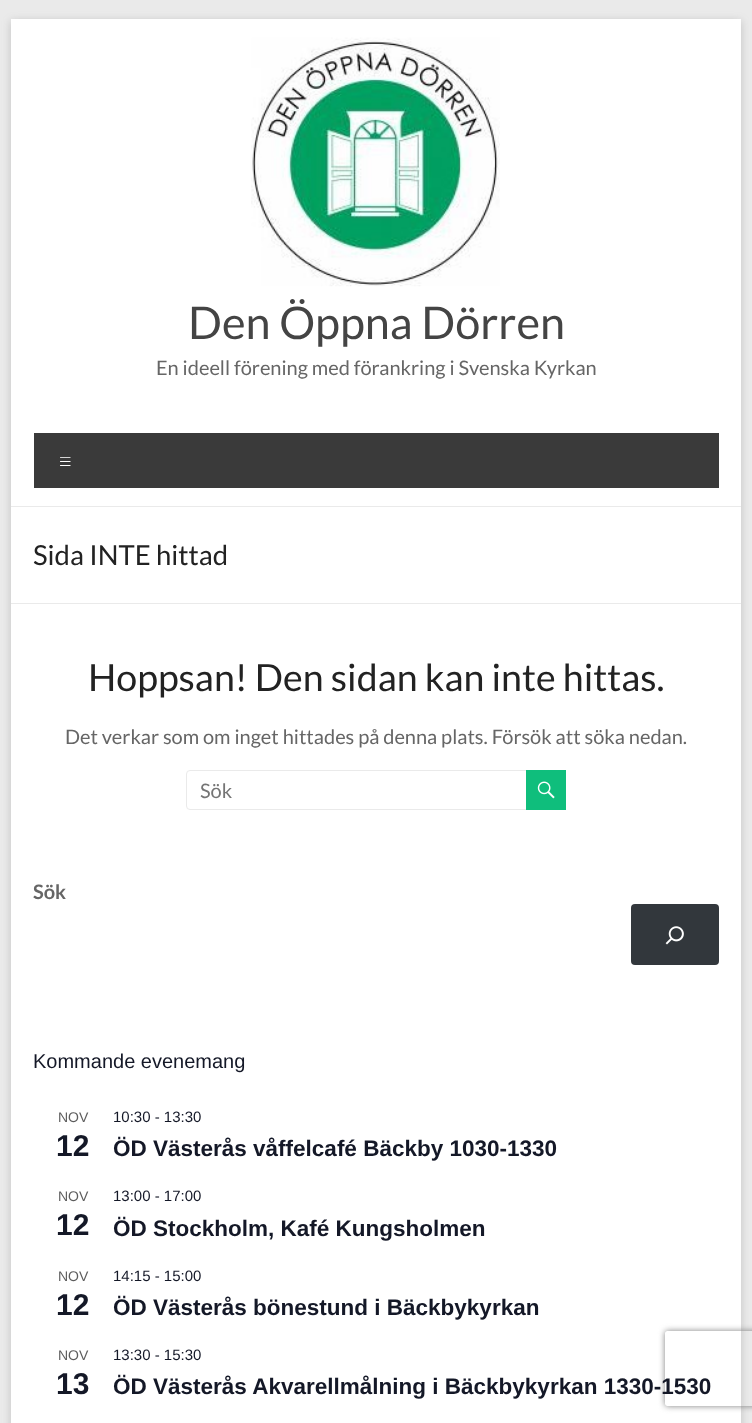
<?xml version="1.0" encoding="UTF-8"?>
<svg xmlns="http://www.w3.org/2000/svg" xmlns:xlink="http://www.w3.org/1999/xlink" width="752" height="1423">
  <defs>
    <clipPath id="clip1"><path d="M 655 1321 h 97 v 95 h -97 z m 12.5 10 h 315 c 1.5 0 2.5 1 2.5 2.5 v 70 c 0 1.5 -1 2.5 -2.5 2.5 h -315 c -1.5 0 -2.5 -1 -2.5 -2.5 v -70 c 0 -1.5 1 -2.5 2.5 -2.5 z" clip-rule="evenodd" /></clipPath>
  </defs>
  <rect width="100%" height="100%" fill="#eaeaea" />
  <rect x="11" y="21" width="730" height="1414" fill="#646464" fill-opacity="0.3" filter="blur(4px)" />
  <rect x="11" y="19" width="730" height="1404" fill="#ffffff" />
  <rect x="11" y="506" width="730" height="1" fill="#eaeaea" />
  <image x="251" y="37" width="249" height="250" xlink:href="image1.png" />
  <rect x="34" y="433" width="685" height="55" fill="#3a3a3a" />
  <rect x="11" y="603" width="730" height="1" fill="#eaeaea" />
  <rect x="186.5" y="770.5" width="343" height="39" rx="3.5" fill="none" stroke="#eaeaea" />
  <rect x="526" y="770" width="40" height="40" fill="#0fbe7c" />
  <image x="537" y="781" width="18" height="18" xlink:href="image2.png" />
  <rect x="631" y="904" width="88" height="61" rx="4" fill="#32373c" />
  <image x="665" y="926" width="19" height="19" xlink:href="image3.png" />
  <g clip-path="url(#clip1)">
    <rect x="665" y="1331" width="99" height="75" rx="2.5" fill="#808080" filter="blur(3px)" />
  </g>
  <text x="188" y="339" style="font-family: Lato; font-size: 45px; fill: #444444">Den Öppna Dörren</text>
  <text x="156" y="375" style="font-family: Lato; font-size: 20px; fill: #666666">En ideell förening med förankring i Svenska Kyrkan</text>
  <text x="58" y="470" style="font-family: Lato; font-size: 25px; font-weight: 300; fill: #ffffff">≡</text>
  <text x="33" y="565" style="font-family: Lato; font-size: 27.5px; fill: #222222">Sida INTE hittad</text>
  <text x="88" y="691" style="font-family: Lato; font-size: 37.5px; fill: #222222">Hoppsan! Den sidan kan inte hittas.</text>
  <text x="65" y="744" style="font-family: Lato; font-size: 20px; fill: #666666">Det verkar som om inget hittades på denna plats. Försök att söka nedan.</text>
  <text x="200" y="798" style="font-family: Lato; font-size: 20px; fill: #757575">Sök</text>
  <text x="33" y="899" style="font-family: Lato; font-size: 20px; font-weight: bold; fill: #666666">Sök</text>
  <text x="33" y="1068" style="font-family: Liberation Sans; font-size: 20px; fill: #141827">Kommande evenemang</text>
  <text x="58" y="1122" style="font-family: Liberation Sans; font-size: 14px; fill: #5d5d5d">NOV</text>
  <text x="56" y="1156" style="font-family: Liberation Sans; font-size: 30px; font-weight: bold; fill: #141827">12</text>
  <text x="113" y="1122" style="font-family: Liberation Sans; font-size: 15px; fill: #141827">10:30 - 13:30</text>
  <text x="113" y="1156" style="font-family: Liberation Sans; font-size: 22.5px; font-weight: bold; fill: #141827">ÖD Västerås våffelcafé Bäckby 1030-1330</text>
  <text x="58" y="1201" style="font-family: Liberation Sans; font-size: 14px; fill: #5d5d5d">NOV</text>
  <text x="56" y="1235" style="font-family: Liberation Sans; font-size: 30px; font-weight: bold; fill: #141827">12</text>
  <text x="113" y="1201" style="font-family: Liberation Sans; font-size: 15px; fill: #141827">13:00 - 17:00</text>
  <text x="113" y="1236" style="font-family: Liberation Sans; font-size: 22.5px; font-weight: bold; fill: #141827">ÖD Stockholm, Kafé Kungsholmen</text>
  <text x="58" y="1281" style="font-family: Liberation Sans; font-size: 14px; fill: #5d5d5d">NOV</text>
  <text x="56" y="1315" style="font-family: Liberation Sans; font-size: 30px; font-weight: bold; fill: #141827">12</text>
  <text x="113" y="1281" style="font-family: Liberation Sans; font-size: 15px; fill: #141827">14:15 - 15:00</text>
  <text x="113" y="1315" style="font-family: Liberation Sans; font-size: 22.5px; font-weight: bold; fill: #141827">ÖD Västerås bönestund i Bäckbykyrkan</text>
  <text x="58" y="1360" style="font-family: Liberation Sans; font-size: 14px; fill: #5d5d5d">NOV</text>
  <text x="56" y="1394" style="font-family: Liberation Sans; font-size: 30px; font-weight: bold; fill: #141827">13</text>
  <text x="113" y="1360" style="font-family: Liberation Sans; font-size: 15px; fill: #141827">13:30 - 15:30</text>
  <text x="113" y="1394" style="font-family: Liberation Sans; font-size: 22.5px; font-weight: bold; fill: #141827">ÖD Västerås Akvarellmålning i Bäckbykyrkan 1330-1530</text>
</svg>
